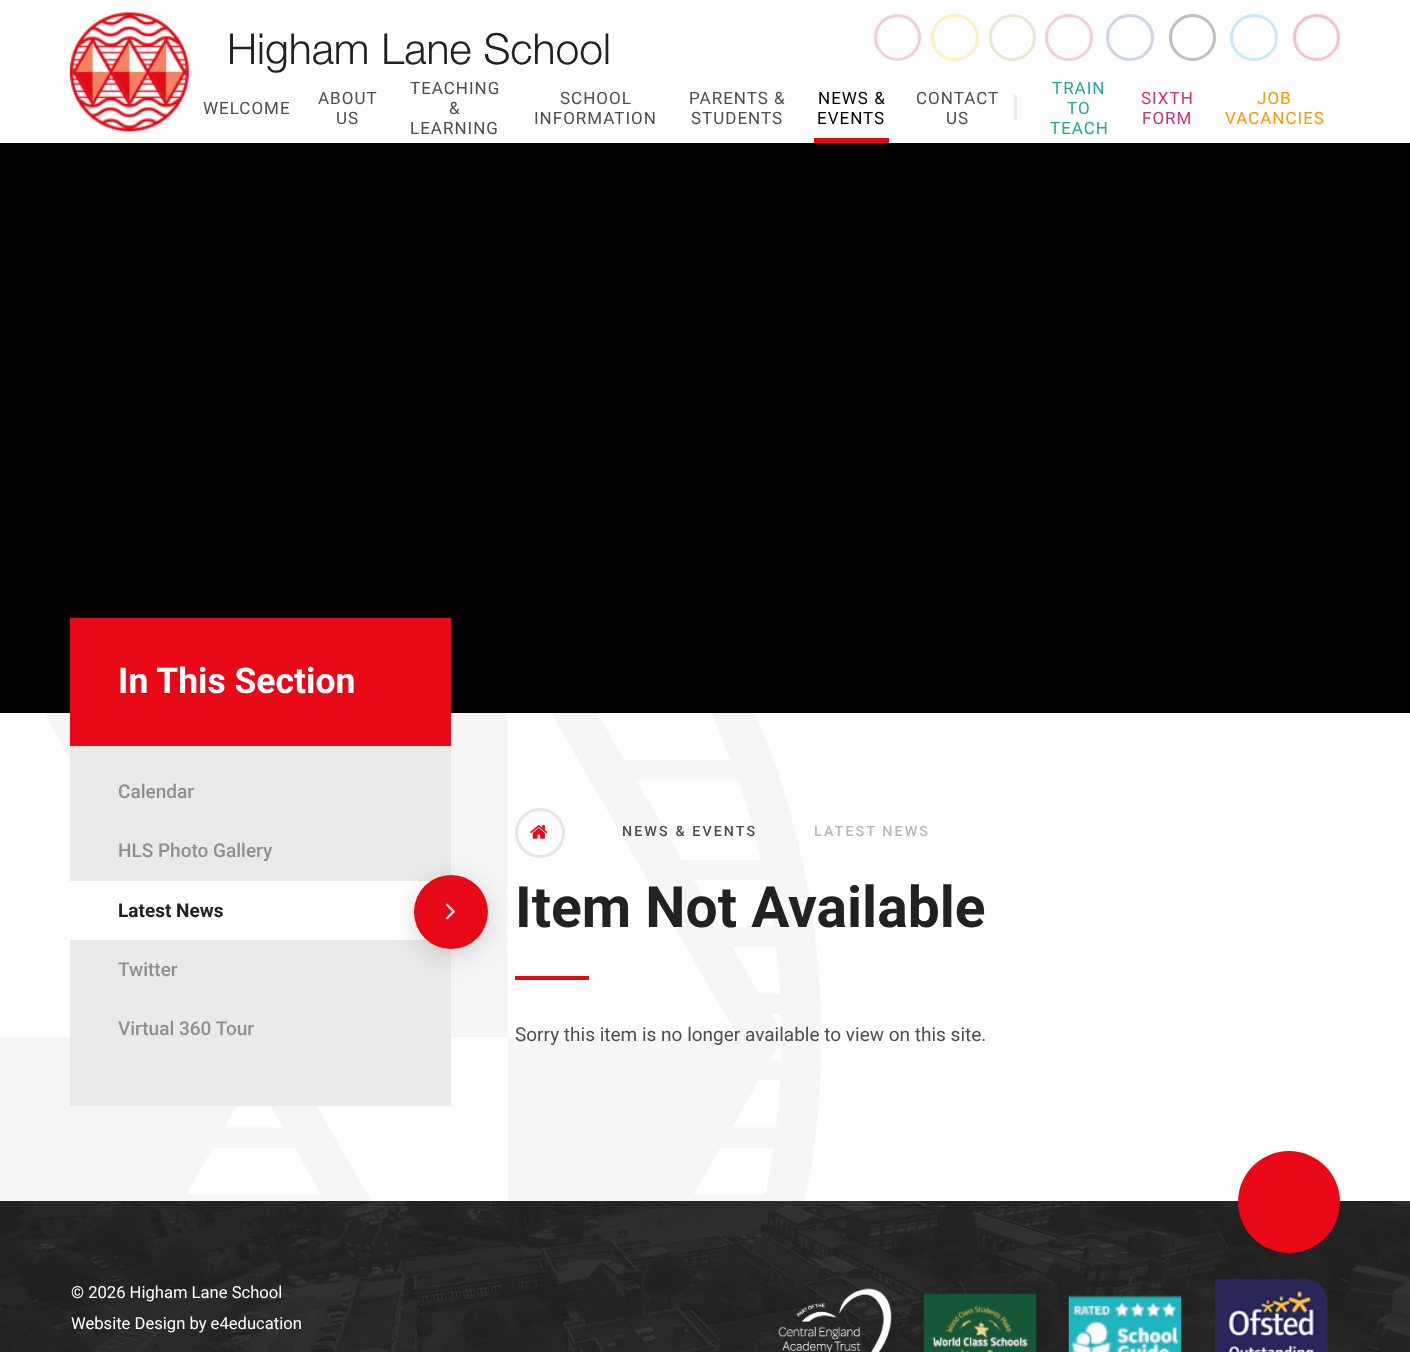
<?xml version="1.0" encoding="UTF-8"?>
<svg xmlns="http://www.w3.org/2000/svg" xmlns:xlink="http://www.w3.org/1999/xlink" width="1410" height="1352">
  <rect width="100%" height="100%" fill="#ffffff" />
  <rect y="143" width="1410" height="570" fill="#000000" />
  <rect y="6" width="1410" height="143" fill="#000000" fill-opacity="0.15" filter="blur(12.5px)" />
  <rect width="1410" height="143" fill="#ffffff" />
  <image x="70" y="12" width="119" height="120" xlink:href="image1.png" />
  <circle cx="897.5" cy="37.5" r="22" fill="none" stroke="#f4ccdd" stroke-width="3" />
  <rect x="932.5" y="15.5" width="45" height="44" rx="22" fill="none" stroke="#ffefc3" stroke-width="3" />
  <circle cx="1012.5" cy="37.5" r="22" fill="none" stroke="#e1ecd2" stroke-width="3" />
  <rect x="1046.5" y="15.5" width="45" height="44" rx="22" fill="none" stroke="#f4ccdd" stroke-width="3" />
  <rect x="1107.5" y="15.5" width="45" height="44" rx="22" fill="none" stroke="#ced6e5" stroke-width="3" />
  <circle cx="1192.5" cy="37.5" r="22" fill="none" stroke="#bfbfbf" stroke-width="3" />
  <rect x="1231.5" y="15.5" width="45" height="44" rx="22" fill="none" stroke="#c7e8fc" stroke-width="3" />
  <circle cx="1316.5" cy="37.5" r="22" fill="none" stroke="#f9c1c5" stroke-width="3" />
  <rect x="814" y="138" width="75" height="5" fill="#e30713" />
  <rect x="1014" y="95" width="3" height="25" fill="#eaeaea" />
  <image x="0" y="713" width="821" height="488" xlink:href="image4.png" />
  <rect x="70" y="618" width="381" height="128" fill="#e80816" />
  <rect x="70" y="746" width="381" height="360" fill="#eaeaea" />
  <rect x="70" y="881" width="361" height="59" fill="#ffffff" />
  <circle cx="540" cy="833" r="23.5" fill="none" stroke="#e6e6e6" stroke-width="3" />
  <rect x="515" y="976" width="74" height="4" fill="#e80816" />
  <rect x="414" y="881" width="74" height="74" rx="37" fill="#000000" fill-opacity="0.15" filter="blur(12.5px)" />
  <circle cx="451" cy="912" r="37" fill="#e80816" />
  <image x="445" y="903" width="10" height="17" xlink:href="image2.png" />
  <image x="530" y="825" width="18" height="14" xlink:href="image3.png" />
  <rect y="1201" width="1410" height="151" fill="#222222" />
  <image x="0" y="1201" width="1410" height="151" xlink:href="image5.png" />
  <circle cx="1289" cy="1202" r="51" fill="#e80816" />
  <image x="778" y="1288" width="114" height="64" xlink:href="image6.png" />
  <image x="923" y="1293" width="114" height="59" xlink:href="image7.png" />
  <image x="1068" y="1295" width="114" height="57" xlink:href="image8.png" />
  <image x="1215" y="1278" width="113" height="74" xlink:href="image9.png" />
  <text x="227" y="64" style="font-family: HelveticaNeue; font-size: 42.75px; font-weight: 300; fill: #212121">Higham Lane School</text>
  <text x="203" y="114" style="font-family: Roboto; font-size: 17px; letter-spacing: 1px; fill: #4d4d4d">WELCOME</text>
  <text x="318" y="104" style="font-family: Roboto; font-size: 17px; letter-spacing: 1px; fill: #4d4d4d">ABOUT</text>
  <text x="336" y="124" style="font-family: Roboto; font-size: 17px; letter-spacing: 1px; fill: #4d4d4d">US</text>
  <text x="410" y="94" style="font-family: Roboto; font-size: 17px; letter-spacing: 1px; fill: #4d4d4d">TEACHING</text>
  <text x="449" y="114" style="font-family: Roboto; font-size: 17px; letter-spacing: 1px; fill: #4d4d4d">&amp;</text>
  <text x="410" y="134" style="font-family: Roboto; font-size: 17px; letter-spacing: 1px; fill: #4d4d4d">LEARNING</text>
  <text x="560" y="104" style="font-family: Roboto; font-size: 17px; letter-spacing: 1px; fill: #4d4d4d">SCHOOL</text>
  <text x="534" y="124" style="font-family: Roboto; font-size: 17px; letter-spacing: 1px; fill: #4d4d4d">INFORMATION</text>
  <text x="689" y="104" style="font-family: Roboto; font-size: 17px; letter-spacing: 1px; fill: #4d4d4d">PARENTS &amp;</text>
  <text x="691" y="124" style="font-family: Roboto; font-size: 17px; letter-spacing: 1px; fill: #4d4d4d">STUDENTS</text>
  <text x="818" y="104" style="font-family: Roboto; font-size: 17px; letter-spacing: 1px; fill: #000000">NEWS &amp;</text>
  <text x="817" y="124" style="font-family: Roboto; font-size: 17px; letter-spacing: 1px; fill: #000000">EVENTS</text>
  <text x="916" y="104" style="font-family: Roboto; font-size: 17px; letter-spacing: 1px; fill: #4d4d4d">CONTACT</text>
  <text x="946" y="124" style="font-family: Roboto; font-size: 17px; letter-spacing: 1px; fill: #4d4d4d">US</text>
  <text x="1052" y="94" style="font-family: Roboto; font-size: 17px; letter-spacing: 1px; fill: #23a695">TRAIN</text>
  <text x="1067" y="114" style="font-family: Roboto; font-size: 17px; letter-spacing: 1px; fill: #23a695">TO</text>
  <text x="1050" y="134" style="font-family: Roboto; font-size: 17px; letter-spacing: 1px; fill: #23a695">TEACH</text>
  <text x="1141" y="104" style="font-family: Roboto; font-size: 17px; letter-spacing: 1px; fill: #d13176">SIXTH</text>
  <text x="1142" y="124" style="font-family: Roboto; font-size: 17px; letter-spacing: 1px; fill: #d13176">FORM</text>
  <text x="1257" y="104" style="font-family: Roboto; font-size: 17px; letter-spacing: 1px; fill: #ff9600">JOB</text>
  <text x="1225" y="124" style="font-family: Roboto; font-size: 17px; letter-spacing: 1px; fill: #ff9600">VACANCIES</text>
  <text x="118" y="693" style="font-family: Roboto; font-size: 35.5px; font-weight: bold; fill: #ffffff">In This Section</text>
  <text x="118" y="798" style="font-family: Roboto; font-size: 19px; font-weight: 500; fill: #8f8f8f">Calendar</text>
  <text x="118" y="857" style="font-family: Roboto; font-size: 19px; font-weight: 500; fill: #8f8f8f">HLS Photo Gallery</text>
  <text x="118" y="917" style="font-family: Roboto; font-size: 19px; font-weight: bold; fill: #212121">Latest News</text>
  <text x="118" y="976" style="font-family: Roboto; font-size: 19px; font-weight: 500; fill: #8f8f8f">Twitter</text>
  <text x="118" y="1035" style="font-family: Roboto; font-size: 19px; font-weight: 500; fill: #8f8f8f">Virtual 360 Tour</text>
  <text x="622" y="836" style="font-family: Roboto; font-size: 14.25px; font-weight: 500; letter-spacing: 2.1px; fill: #4d4d4d">NEWS &amp; EVENTS</text>
  <text x="814" y="836" style="font-family: Roboto; font-size: 14.25px; font-weight: 500; letter-spacing: 2.1px; fill: #b7b7b7">LATEST NEWS</text>
  <text x="515" y="927" style="font-family: Roboto; font-size: 57px; font-weight: bold; fill: #212121">Item Not Available</text>
  <text x="515" y="1041" style="font-family: Roboto; font-size: 19px; fill: #4d4d4d">Sorry this item is no longer available to view on this site.</text>
  <text x="71" y="1298" style="font-family: Roboto; font-size: 16.6px; fill: #ffffff">© 2026 Higham Lane School</text>
  <text x="71" y="1329" style="font-family: Roboto; font-size: 16.6px; fill: #ffffff">Website Design by e4education</text>
</svg>
